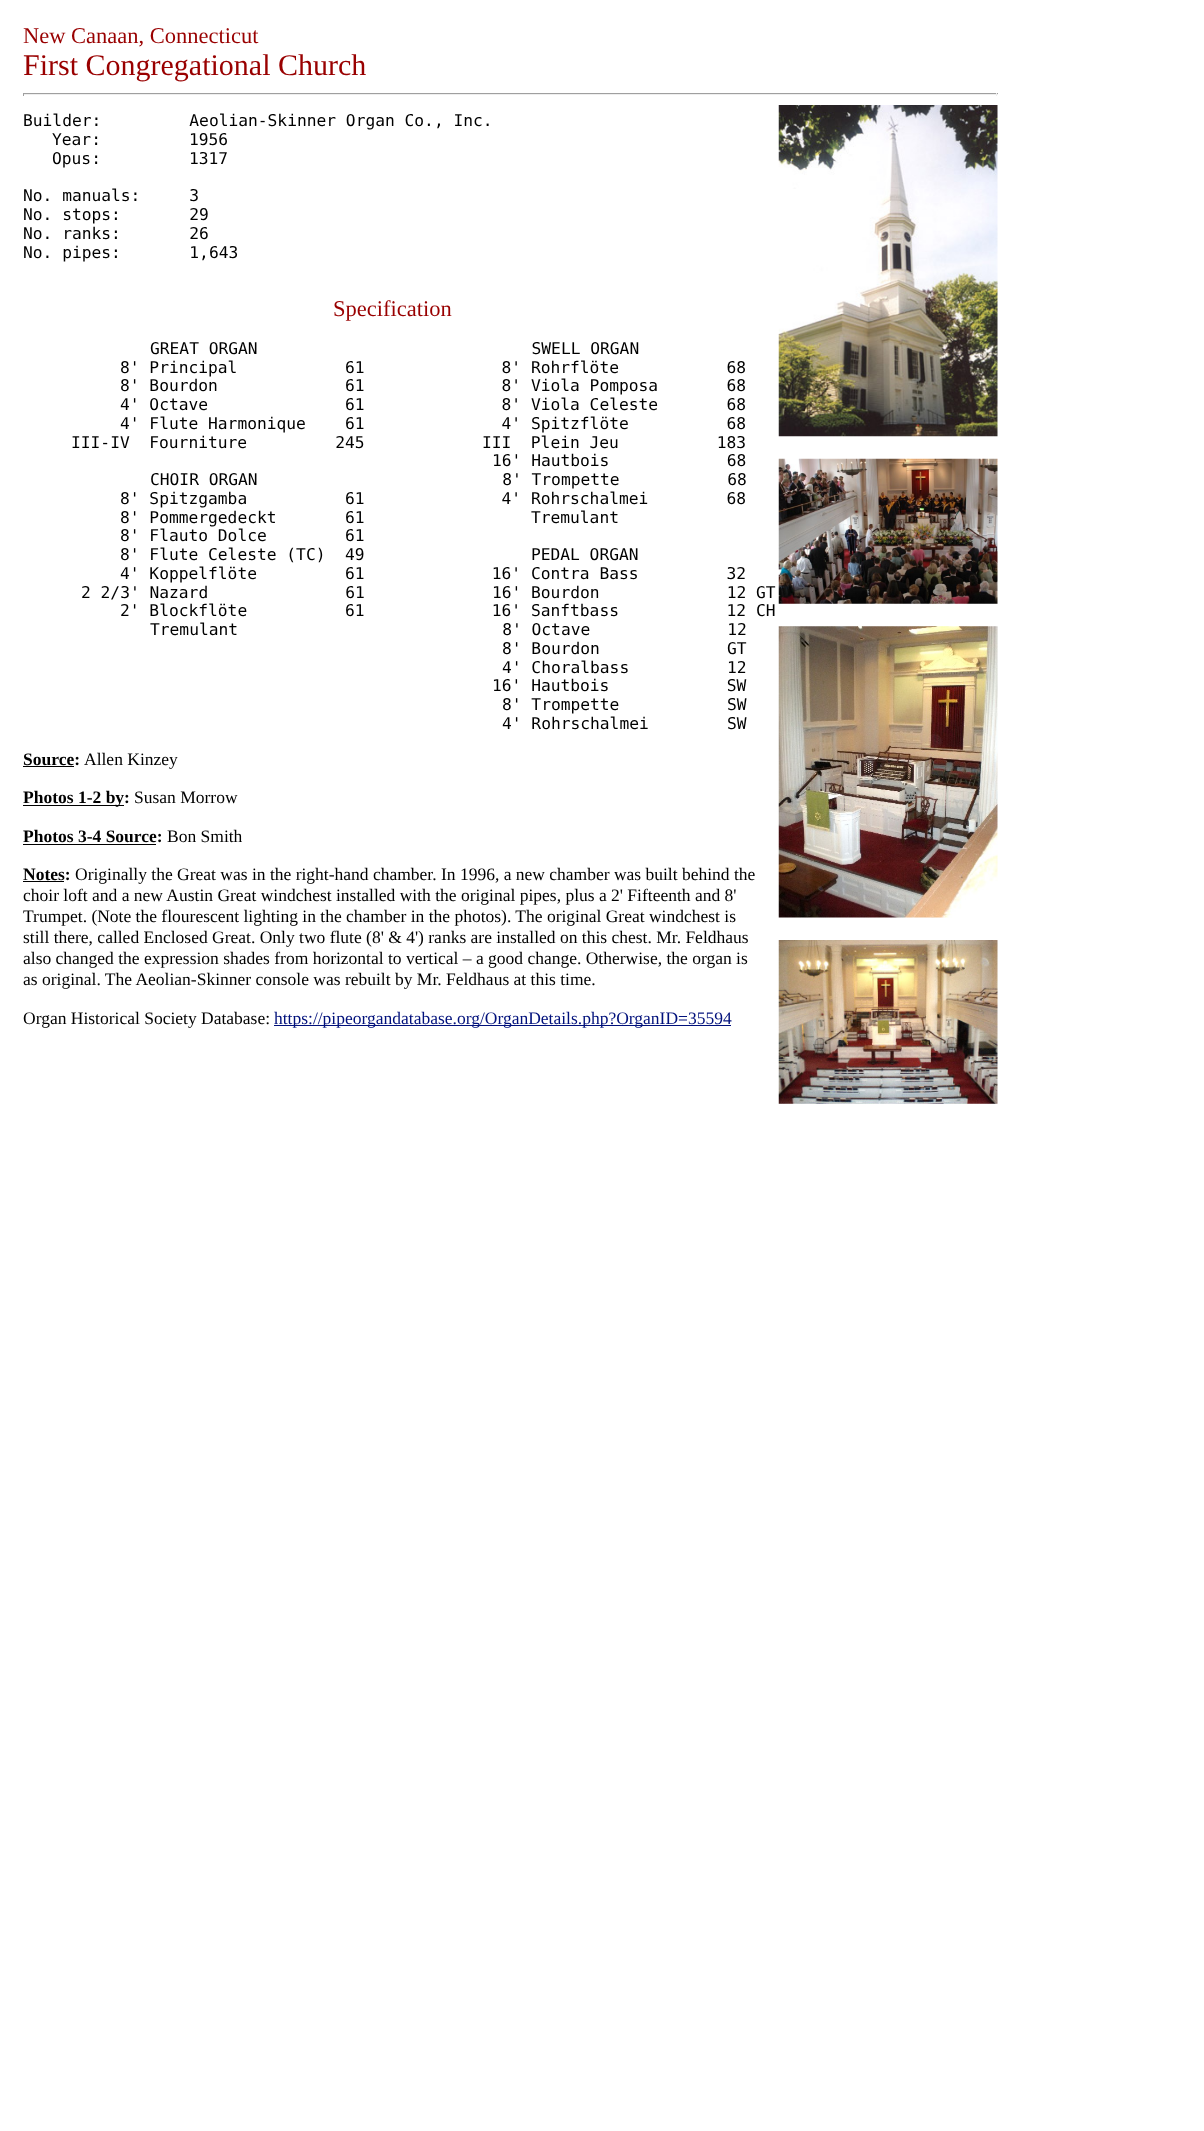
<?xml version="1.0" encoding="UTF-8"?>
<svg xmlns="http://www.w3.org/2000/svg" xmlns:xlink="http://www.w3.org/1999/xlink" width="1204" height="2131">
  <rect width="100%" height="100%" fill="#ffffff" />
  <rect x="23" y="93" width="975" height="1" fill="#9f9f9f" />
  <rect x="996" y="93" width="1" height="3" fill="#eeeeee" />
  <rect x="23" y="94" width="975" height="1" fill="#eeeeee" />
  <rect x="23" y="93" width="1" height="3" fill="#9f9f9f" />
  <image x="778" y="105" width="220" height="332" xlink:href="image1.png" />
  <image x="778" y="458" width="220" height="146" xlink:href="image2.png" />
  <image x="778" y="626" width="220" height="292" xlink:href="image3.png" />
  <image x="778" y="940" width="220" height="164" xlink:href="image4.png" />
  <rect x="23" y="766" width="51" height="1" fill="#000000" />
  <rect x="23" y="805" width="101" height="1" fill="#000000" />
  <rect x="23" y="844" width="133" height="1" fill="#000000" />
  <rect x="23" y="881" width="41" height="1" fill="#000000" />
  <rect x="274" y="1025" width="457" height="1" fill="#00107b" />
  <text x="23" y="43" style="font-family: Liberation Serif; font-size: 22.5px; fill: #990000">New Canaan, Connecticut</text>
  <text x="23" y="75" style="font-family: Liberation Serif; font-size: 30px; fill: #990000">First Congregational Church</text>
  <text x="23" y="126" style="font-family: DejaVu Sans Mono; font-size: 16.25px; fill: #000000" xml:space="preserve">Builder:         Aeolian-Skinner Organ Co., Inc.</text>
  <text x="52" y="145" style="font-family: DejaVu Sans Mono; font-size: 16.25px; fill: #000000" xml:space="preserve">Year:         1956</text>
  <text x="52" y="164" style="font-family: DejaVu Sans Mono; font-size: 16.25px; fill: #000000" xml:space="preserve">Opus:         1317</text>
  <text x="23" y="201" style="font-family: DejaVu Sans Mono; font-size: 16.25px; fill: #000000" xml:space="preserve">No. manuals:     3</text>
  <text x="23" y="220" style="font-family: DejaVu Sans Mono; font-size: 16.25px; fill: #000000" xml:space="preserve">No. stops:       29</text>
  <text x="23" y="239" style="font-family: DejaVu Sans Mono; font-size: 16.25px; fill: #000000" xml:space="preserve">No. ranks:       26</text>
  <text x="23" y="258" style="font-family: DejaVu Sans Mono; font-size: 16.25px; fill: #000000" xml:space="preserve">No. pipes:       1,643</text>
  <text x="333" y="316" style="font-family: Liberation Serif; font-size: 22.5px; fill: #990000">Specification</text>
  <text x="150" y="354" style="font-family: DejaVu Sans Mono; font-size: 16.25px; fill: #000000" xml:space="preserve">GREAT ORGAN                            SWELL ORGAN</text>
  <text x="120" y="373" style="font-family: DejaVu Sans Mono; font-size: 16.25px; fill: #000000" xml:space="preserve">8' Principal           61              8' Rohrflöte           68</text>
  <text x="120" y="391" style="font-family: DejaVu Sans Mono; font-size: 16.25px; fill: #000000" xml:space="preserve">8' Bourdon             61              8' Viola Pomposa       68</text>
  <text x="120" y="410" style="font-family: DejaVu Sans Mono; font-size: 16.25px; fill: #000000" xml:space="preserve">4' Octave              61              8' Viola Celeste       68</text>
  <text x="120" y="429" style="font-family: DejaVu Sans Mono; font-size: 16.25px; fill: #000000" xml:space="preserve">4' Flute Harmonique    61              4' Spitzflöte          68</text>
  <text x="71" y="448" style="font-family: DejaVu Sans Mono; font-size: 16.25px; fill: #000000" xml:space="preserve">III-IV  Fourniture         245            III  Plein Jeu          183</text>
  <text x="492" y="466" style="font-family: DejaVu Sans Mono; font-size: 16.25px; fill: #000000" xml:space="preserve">16' Hautbois            68</text>
  <text x="150" y="485" style="font-family: DejaVu Sans Mono; font-size: 16.25px; fill: #000000" xml:space="preserve">CHOIR ORGAN                         8' Trompette           68</text>
  <text x="120" y="504" style="font-family: DejaVu Sans Mono; font-size: 16.25px; fill: #000000" xml:space="preserve">8' Spitzgamba          61              4' Rohrschalmei        68</text>
  <text x="120" y="523" style="font-family: DejaVu Sans Mono; font-size: 16.25px; fill: #000000" xml:space="preserve">8' Pommergedeckt       61                 Tremulant</text>
  <text x="120" y="541" style="font-family: DejaVu Sans Mono; font-size: 16.25px; fill: #000000" xml:space="preserve">8' Flauto Dolce        61</text>
  <text x="120" y="560" style="font-family: DejaVu Sans Mono; font-size: 16.25px; fill: #000000" xml:space="preserve">8' Flute Celeste (TC)  49                 PEDAL ORGAN</text>
  <text x="120" y="579" style="font-family: DejaVu Sans Mono; font-size: 16.25px; fill: #000000" xml:space="preserve">4' Koppelflöte         61             16' Contra Bass         32</text>
  <text x="81" y="598" style="font-family: DejaVu Sans Mono; font-size: 16.25px; fill: #000000" xml:space="preserve">2 2/3' Nazard              61             16' Bourdon             12 GT</text>
  <text x="120" y="616" style="font-family: DejaVu Sans Mono; font-size: 16.25px; fill: #000000" xml:space="preserve">2' Blockflöte          61             16' Sanftbass           12 CH</text>
  <text x="150" y="635" style="font-family: DejaVu Sans Mono; font-size: 16.25px; fill: #000000" xml:space="preserve">Tremulant                           8' Octave              12</text>
  <text x="502" y="654" style="font-family: DejaVu Sans Mono; font-size: 16.25px; fill: #000000" xml:space="preserve">8' Bourdon             GT</text>
  <text x="502" y="673" style="font-family: DejaVu Sans Mono; font-size: 16.25px; fill: #000000" xml:space="preserve">4' Choralbass          12</text>
  <text x="492" y="691" style="font-family: DejaVu Sans Mono; font-size: 16.25px; fill: #000000" xml:space="preserve">16' Hautbois            SW</text>
  <text x="502" y="710" style="font-family: DejaVu Sans Mono; font-size: 16.25px; fill: #000000" xml:space="preserve">8' Trompette           SW</text>
  <text x="502" y="729" style="font-family: DejaVu Sans Mono; font-size: 16.25px; fill: #000000" xml:space="preserve">4' Rohrschalmei        SW</text>
  <text x="23" y="765" style="font-family: Liberation Serif; font-size: 17.5px; font-weight: bold; fill: #000000">Source:</text>
  <text x="84" y="765" style="font-family: Liberation Serif; font-size: 17.5px; fill: #000000">Allen Kinzey</text>
  <text x="23" y="803" style="font-family: Liberation Serif; font-size: 17.5px; font-weight: bold; fill: #000000">Photos 1-2 by:</text>
  <text x="134" y="803" style="font-family: Liberation Serif; font-size: 17.5px; fill: #000000">Susan Morrow</text>
  <text x="23" y="842" style="font-family: Liberation Serif; font-size: 17.5px; font-weight: bold; fill: #000000">Photos 3-4 Source:</text>
  <text x="167" y="842" style="font-family: Liberation Serif; font-size: 17.5px; fill: #000000">Bon Smith</text>
  <text x="23" y="880" style="font-family: Liberation Serif; font-size: 17.5px; font-weight: bold; fill: #000000">Notes:</text>
  <text x="75" y="880" style="font-family: Liberation Serif; font-size: 17.5px; fill: #000000">Originally the Great was in the right-hand chamber. In 1996, a new chamber was built behind the</text>
  <text x="23" y="901" style="font-family: Liberation Serif; font-size: 17.5px; fill: #000000">choir loft and a new Austin Great windchest installed with the original pipes, plus a 2' Fifteenth and 8'</text>
  <text x="23" y="922" style="font-family: Liberation Serif; font-size: 17.5px; fill: #000000">Trumpet. (Note the flourescent lighting in the chamber in the photos). The original Great windchest is</text>
  <text x="23" y="943" style="font-family: Liberation Serif; font-size: 17.5px; fill: #000000">still there, called Enclosed Great. Only two flute (8' &amp; 4') ranks are installed on this chest. Mr. Feldhaus</text>
  <text x="23" y="964" style="font-family: Liberation Serif; font-size: 17.5px; fill: #000000">also changed the expression shades from horizontal to vertical – a good change. Otherwise, the organ is</text>
  <text x="23" y="985" style="font-family: Liberation Serif; font-size: 17.5px; fill: #000000">as original. The Aeolian-Skinner console was rebuilt by Mr. Feldhaus at this time.</text>
  <text x="23" y="1024" style="font-family: Liberation Serif; font-size: 17.5px; fill: #000000">Organ Historical Society Database:</text>
  <text x="274" y="1024" style="font-family: Liberation Serif; font-size: 17.5px; fill: #00107b">https://pipeorgandatabase.org/OrganDetails.php?OrganID=35594</text>
</svg>
